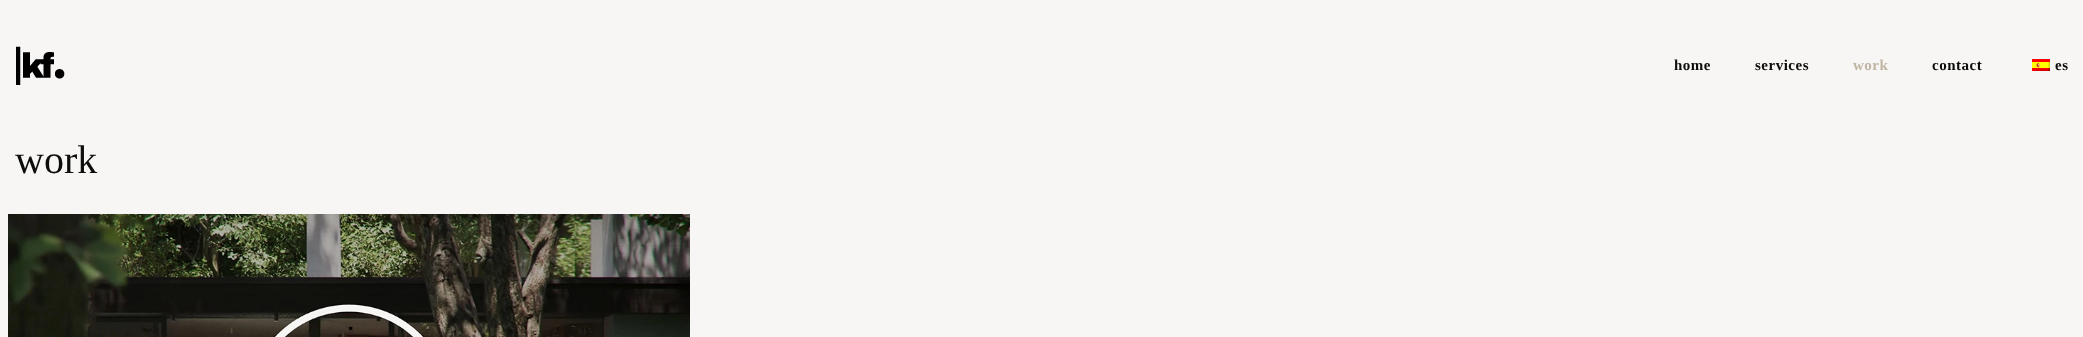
<?xml version="1.0" encoding="UTF-8"?>
<svg xmlns="http://www.w3.org/2000/svg" xmlns:xlink="http://www.w3.org/1999/xlink" width="2083" height="337">
  <rect width="100%" height="100%" fill="#f7f6f5" />
  <image x="16" y="46" width="49" height="39" xlink:href="image1.png" />
  <image x="2032" y="59" width="18" height="12" xlink:href="image2.png" />
  <image x="8" y="214" width="682" height="123" xlink:href="image3.png" />
  <text x="1674" y="70" style="font-family: Liberation Serif; font-size: 15px; font-weight: bold; letter-spacing: 0.5px; fill: #0d0d0c">home</text>
  <text x="1755" y="70" style="font-family: Liberation Serif; font-size: 15px; font-weight: bold; letter-spacing: 0.5px; fill: #0d0d0c">services</text>
  <text x="1853" y="70" style="font-family: Liberation Serif; font-size: 15px; font-weight: bold; letter-spacing: 0.5px; fill: #bfb5a3">work</text>
  <text x="1932" y="70" style="font-family: Liberation Serif; font-size: 15px; font-weight: bold; letter-spacing: 0.5px; fill: #0d0d0c">contact</text>
  <text x="2055" y="70" style="font-family: Liberation Serif; font-size: 15px; font-weight: bold; letter-spacing: 0.5px; fill: #0d0d0c">es</text>
  <text x="15" y="173" style="font-family: Liberation Serif; font-size: 40px; fill: #0d0d0c">work</text>
</svg>
